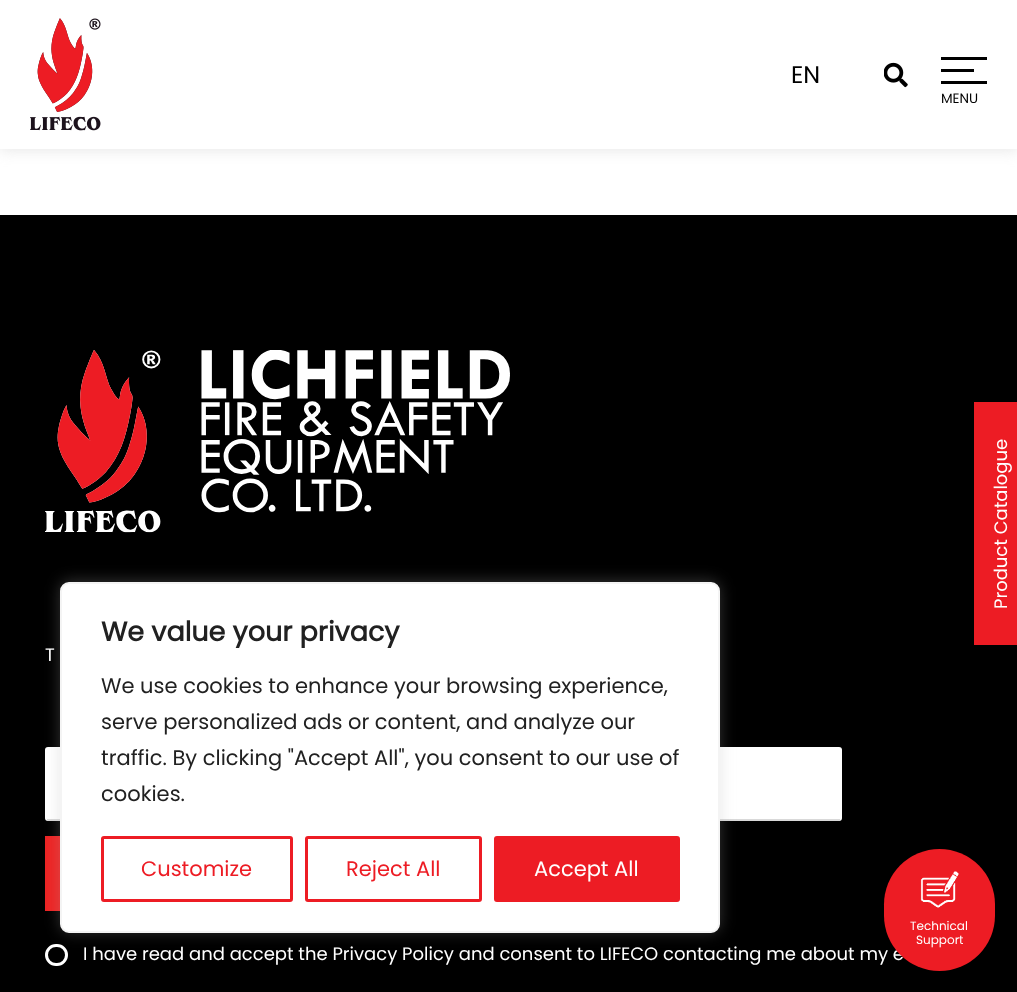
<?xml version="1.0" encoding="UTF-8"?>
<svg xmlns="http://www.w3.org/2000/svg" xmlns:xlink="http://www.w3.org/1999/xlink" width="1017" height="992">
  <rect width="100%" height="100%" fill="#ffffff" />
  <rect x="-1" y="-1" width="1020" height="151" fill="#c4c4c4" fill-opacity="0.42" filter="blur(7.5px)" />
  <rect width="1017" height="149" fill="#ffffff" />
  <image x="30" y="18" width="71" height="113" xlink:href="image1.png" />
  <image x="884" y="62" width="24" height="26" xlink:href="image2.png" />
  <rect x="941" y="57" width="46" height="3" fill="#000000" />
  <rect x="941" y="69" width="33" height="3" fill="#000000" />
  <rect x="941" y="81" width="46" height="3" fill="#000000" />
  <rect y="215" width="1017" height="777" fill="#000000" />
  <rect x="974" y="402" width="43" height="243" fill="#ed1c24" />
  <image x="45" y="350" width="465" height="183" xlink:href="image3.png" />
  <rect x="45" y="747" width="797" height="74" rx="3" fill="#ffffff" />
  <rect x="47" y="819" width="793" height="2" fill="#d9d9d9" />
  <rect x="45" y="836" width="15" height="75" fill="#ed2424" />
  <rect x="46.5" y="945.5" width="20" height="19" rx="9.5" fill="none" stroke="#ffffff" stroke-width="3" />
  <rect x="60" y="581" width="660" height="351" rx="9" fill="#acabab" fill-opacity="0.3" filter="blur(7.5px)" />
  <rect x="61" y="583" width="658" height="349" rx="8" fill="#ffffff" stroke="#f4f4f4" stroke-width="2" />
  <rect x="102.5" y="837.5" width="189" height="63" rx="1.5" fill="none" stroke="#ed1c24" stroke-width="3" />
  <rect x="306.5" y="837.5" width="174" height="63" rx="1.5" fill="none" stroke="#ed1c24" stroke-width="3" />
  <rect x="495.5" y="837.5" width="183" height="63" rx="1.5" fill="#ed1c24" stroke="#ed1c24" stroke-width="3" />
  <text x="791" y="83" style="font-family: Poppins; font-size: 24px; fill: #000000">EN</text>
  <text x="941" y="103" style="font-family: Poppins; font-size: 13.5px; fill: #000000">MENU</text>
  <text x="1007" y="609" transform="rotate(-90 1007 609)" style="font-family: Poppins; font-size: 18px; fill: #ffffff">Product Catalogue</text>
  <text x="45" y="661" style="font-family: Poppins; font-size: 18px; letter-spacing: 6px; fill: #ffffff">T</text>
  <text x="83" y="960" style="font-family: Poppins; font-size: 18px; fill: #ffffff">I have read and accept the Privacy Policy and consent to LIFECO contacting me about my e</text>
  <rect x="884" y="849" width="111" height="122" rx="55.5" fill="#ed1c24" />
  <image x="920" y="871" width="39" height="37" xlink:href="image4.png" />
  <text x="910" y="930" style="font-family: Poppins; font-size: 12px; fill: #ffffff">Technical</text>
  <text x="916" y="944" style="font-family: Poppins; font-size: 12px; fill: #ffffff">Support</text>
  <text x="101" y="641" style="font-family: Poppins; font-size: 27px; font-weight: bold; fill: #212121">We value your privacy</text>
  <text x="101" y="693" style="font-family: Poppins; font-size: 21px; fill: #212121">We use cookies to enhance your browsing experience,</text>
  <text x="101" y="729" style="font-family: Poppins; font-size: 21px; fill: #212121">serve personalized ads or content, and analyze our</text>
  <text x="101" y="765" style="font-family: Poppins; font-size: 21px; fill: #212121">traffic. By clicking "Accept All", you consent to our use of</text>
  <text x="101" y="801" style="font-family: Poppins; font-size: 21px; fill: #212121">cookies.</text>
  <text x="141" y="876" style="font-family: Poppins; font-size: 21px; fill: #ed1c24">Customize</text>
  <text x="346" y="876" style="font-family: Poppins; font-size: 21px; fill: #ed1c24">Reject All</text>
  <text x="534" y="876" style="font-family: Poppins; font-size: 21px; fill: #ffffff">Accept All</text>
</svg>
